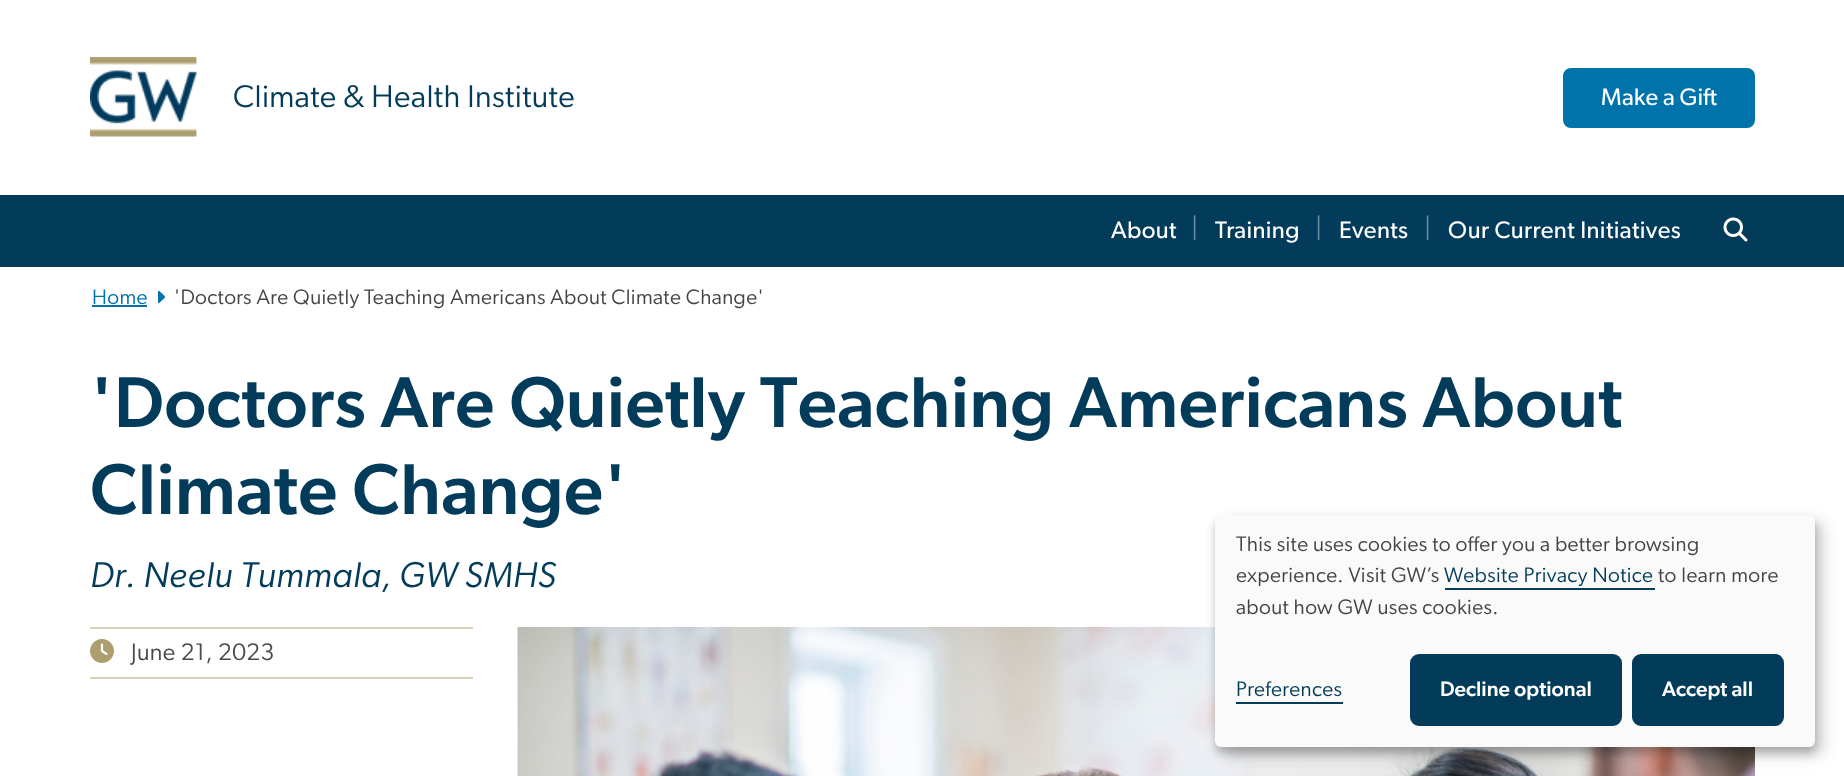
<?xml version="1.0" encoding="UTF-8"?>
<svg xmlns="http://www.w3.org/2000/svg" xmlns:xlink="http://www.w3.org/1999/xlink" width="1844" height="776">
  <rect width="100%" height="100%" fill="#ffffff" />
  <image x="90" y="57" width="107" height="80" xlink:href="image1.png" />
  <rect x="1564.5" y="69.5" width="189" height="57" rx="6.5" fill="#0073aa" stroke="#0073aa" stroke-width="3" />
  <rect y="195" width="1844" height="72" fill="#033c5a" />
  <image x="1723" y="217" width="25" height="25" xlink:href="image2.png" />
  <rect x="92" y="305" width="55" height="2" fill="#0073aa" />
  <image x="158" y="291" width="7" height="12" xlink:href="image3.png" />
  <rect x="90" y="627" width="383" height="2" fill="#d9d0bb" />
  <image x="90" y="639" width="24" height="24" xlink:href="image4.png" />
  <rect x="90" y="677" width="383" height="2" fill="#d9d0bb" />
  <image x="517" y="634" width="1" height="137" xlink:href="image5.png" />
  <image x="517" y="627" width="1238" height="149" xlink:href="image6.png" />
  <rect x="1223" y="522" width="600" height="233" rx="6" fill="#000000" fill-opacity="0.19" filter="blur(7.5px)" />
  <rect x="1215" y="521" width="600" height="232" rx="6" fill="#000000" fill-opacity="0.2" filter="blur(4.5px)" />
  <rect x="1215" y="515" width="600" height="232" rx="6" fill="#fafafa" />
  <rect x="1445" y="588" width="210" height="2" fill="#033c5a" />
  <rect x="1236" y="702" width="107" height="2" fill="#033c5a" />
  <rect x="1412.5" y="656.5" width="207" height="67" rx="6.5" fill="#033c5a" stroke="#033c5a" stroke-width="5" />
  <rect x="1634.5" y="656.5" width="147" height="67" rx="6.5" fill="#033c5a" stroke="#033c5a" stroke-width="5" />
  <text x="233" y="107" style="font-family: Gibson; font-size: 31.5px; letter-spacing: 0.37px; fill: #033c5a">Climate &amp; Health Institute</text>
  <text x="1601" y="105" style="font-family: 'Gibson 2'; font-size: 24px; fill: #ffffff">Make a Gift</text>
  <text x="1111" y="238" style="font-family: 'Gibson 2'; font-size: 24px; letter-spacing: 0.37px; fill: #ffffff">About</text>
  <text x="1191" y="237" style="font-family: Gibson; font-size: 27px; letter-spacing: 0.37px; fill: #688a9c">|</text>
  <text x="1215" y="238" style="font-family: 'Gibson 2'; font-size: 24px; letter-spacing: 0.37px; fill: #ffffff">Training</text>
  <text x="1315" y="237" style="font-family: Gibson; font-size: 27px; letter-spacing: 0.37px; fill: #688a9c">|</text>
  <text x="1339" y="238" style="font-family: 'Gibson 2'; font-size: 24px; letter-spacing: 0.37px; fill: #ffffff">Events</text>
  <text x="1424" y="237" style="font-family: Gibson; font-size: 27px; letter-spacing: 0.37px; fill: #688a9c">|</text>
  <text x="1448" y="238" style="font-family: 'Gibson 2'; font-size: 24px; letter-spacing: 0.37px; fill: #ffffff">Our Current Initiatives</text>
  <text x="92" y="304" style="font-family: Gibson; font-size: 21px; letter-spacing: 0.37px; fill: #0073aa">Home</text>
  <text x="174" y="304" style="font-family: Gibson; font-size: 21px; letter-spacing: 0.37px; fill: #444444">'Doctors Are Quietly Teaching Americans About Climate Change'</text>
  <text x="90" y="427" style="font-family: Gibson; font-size: 72px; font-weight: 500; letter-spacing: 0.37px; fill: #033c5a">'Doctors Are Quietly Teaching Americans About</text>
  <text x="90" y="514" style="font-family: Gibson; font-size: 72px; font-weight: 500; letter-spacing: 0.37px; fill: #033c5a">Climate Change'</text>
  <text x="90" y="587" style="font-family: Gibson; font-size: 36px; font-style: italic; letter-spacing: 0.37px; fill: #033c5a">Dr. Neelu Tummala, GW SMHS</text>
  <text x="131" y="660" style="font-family: Gibson; font-size: 24px; letter-spacing: 0.37px; fill: #4a4a4a">June 21, 2023</text>
  <text x="1236" y="551" style="font-family: Gibson; font-size: 21px; letter-spacing: 0.37px; fill: #444444">This site uses cookies to offer you a better browsing</text>
  <text x="1236" y="582" style="font-family: Gibson; font-size: 21px; letter-spacing: 0.37px; fill: #444444">experience. Visit GW’s</text>
  <text x="1444" y="582" style="font-family: Gibson; font-size: 21px; letter-spacing: 0.37px; fill: #033c5a">Website Privacy Notice</text>
  <text x="1658" y="582" style="font-family: Gibson; font-size: 21px; letter-spacing: 0.37px; fill: #444444">to learn more</text>
  <text x="1236" y="614" style="font-family: Gibson; font-size: 21px; letter-spacing: 0.37px; fill: #444444">about how GW uses cookies.</text>
  <text x="1236" y="696" style="font-family: Gibson; font-size: 21px; letter-spacing: 0.37px; fill: #033c5a">Preferences</text>
  <text x="1440" y="696" style="font-family: Gibson; font-size: 21px; font-weight: 500; fill: #ffffff">Decline optional</text>
  <text x="1662" y="696" style="font-family: Gibson; font-size: 21px; font-weight: 500; fill: #ffffff">Accept all</text>
</svg>
